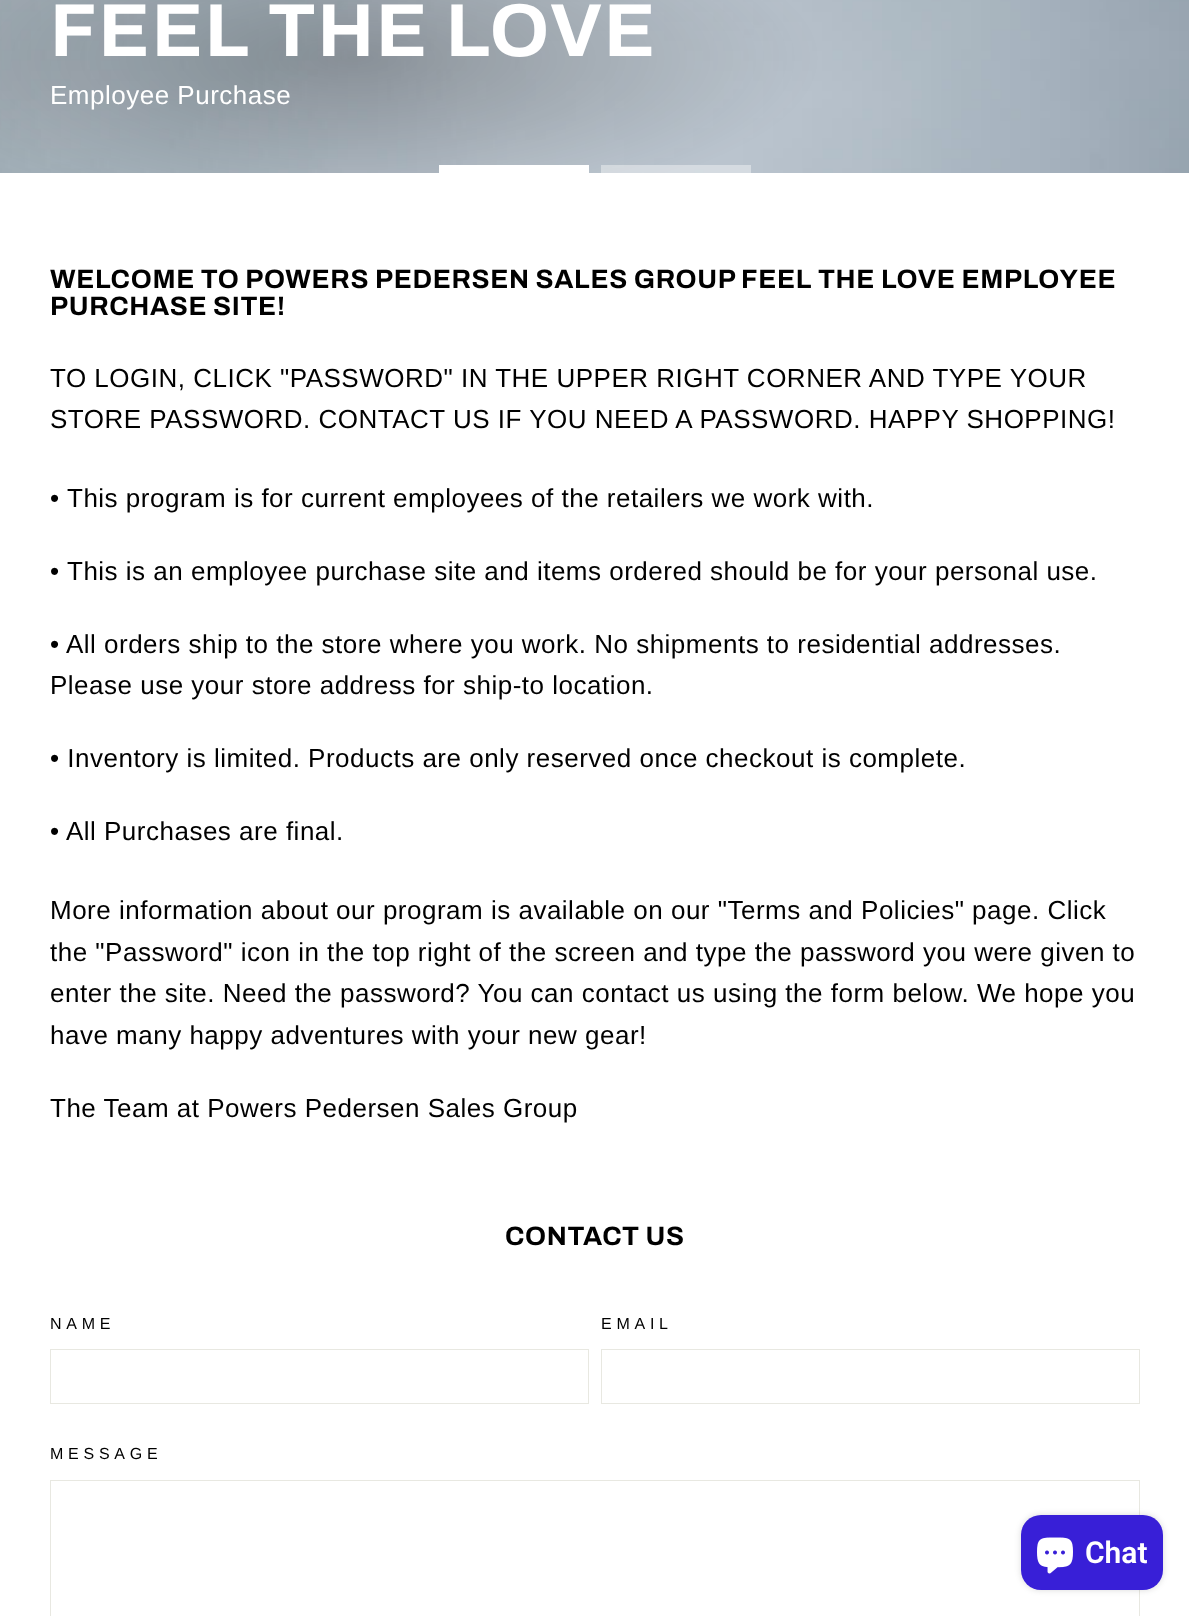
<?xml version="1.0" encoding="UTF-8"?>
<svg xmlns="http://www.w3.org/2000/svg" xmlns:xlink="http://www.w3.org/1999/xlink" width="1189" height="1616">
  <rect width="100%" height="100%" fill="#ffffff" />
  <image x="0" y="0" width="1189" height="173" xlink:href="image1.png" />
  <rect x="439" y="165" width="150" height="8" fill="#ffffff" />
  <rect x="601" y="165" width="150" height="8" fill="#ffffff" fill-opacity="0.4" />
  <rect x="50.5" y="1349.5" width="538" height="54" fill="none" stroke="#e8e8e1" />
  <rect x="601.5" y="1349.5" width="538" height="54" fill="none" stroke="#e8e8e1" />
  <rect x="50.5" y="1480.5" width="1089" height="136" fill="none" stroke="#e8e8e1" />
  <rect x="1021" y="1515" width="142" height="75" rx="20" fill="#000000" fill-opacity="0.15" filter="blur(3px)" />
  <rect x="1021" y="1515" width="142" height="75" rx="20" fill="#381fd7" />
  <image x="1037" y="1537" width="36" height="37" xlink:href="image2.png" />
  <text x="50" y="56" style="font-family: Archivo; font-size: 75px; font-weight: bold; letter-spacing: 1.9px; fill: #ffffff">FEEL THE LOVE</text>
  <text x="50" y="104" style="font-family: Arimo; font-size: 26px; letter-spacing: 0.5px; fill: #ffffff">Employee Purchase</text>
  <text x="50" y="288" style="font-family: Archivo; font-size: 26.55px; font-weight: bold; letter-spacing: 0.65px; fill: #000000">WELCOME TO POWERS PEDERSEN SALES GROUP FEEL THE LOVE EMPLOYEE</text>
  <text x="50" y="315" style="font-family: Archivo; font-size: 26.55px; font-weight: bold; letter-spacing: 0.65px; fill: #000000">PURCHASE SITE!</text>
  <text x="50" y="387" style="font-family: Arimo; font-size: 26px; letter-spacing: 0.5px; fill: #000000">TO LOGIN, CLICK "PASSWORD" IN THE UPPER RIGHT CORNER AND TYPE YOUR</text>
  <text x="50" y="428" style="font-family: Arimo; font-size: 26px; letter-spacing: 0.5px; fill: #000000">STORE PASSWORD. CONTACT US IF YOU NEED A PASSWORD. HAPPY SHOPPING!</text>
  <text x="50" y="507" style="font-family: Arimo; font-size: 26px; letter-spacing: 0.5px; fill: #000000">•</text>
  <text x="67" y="507" style="font-family: Arimo; font-size: 26px; letter-spacing: 0.5px; fill: #000000">This program is for current employees of the retailers we work with.</text>
  <text x="50" y="580" style="font-family: Arimo; font-size: 26px; letter-spacing: 0.5px; fill: #000000">•</text>
  <text x="67" y="580" style="font-family: Arimo; font-size: 26px; letter-spacing: 0.5px; fill: #000000">This is an employee purchase site and items ordered should be for your personal use.</text>
  <text x="50" y="653" style="font-family: Arimo; font-size: 26px; letter-spacing: 0.5px; fill: #000000">• All orders ship to the store where you work. No shipments to residential addresses.</text>
  <text x="50" y="694" style="font-family: Arimo; font-size: 26px; letter-spacing: 0.5px; fill: #000000">Please use your store address for ship-to location.</text>
  <text x="50" y="767" style="font-family: Arimo; font-size: 26px; letter-spacing: 0.5px; fill: #000000">• Inventory is limited. Products are only reserved once checkout is complete.</text>
  <text x="50" y="840" style="font-family: Arimo; font-size: 26px; letter-spacing: 0.5px; fill: #000000">• All Purchases are final.</text>
  <text x="50" y="919" style="font-family: Arimo; font-size: 26px; letter-spacing: 0.5px; fill: #000000">More information about our program is available on our "Terms and Policies" page. Click</text>
  <text x="50" y="961" style="font-family: Arimo; font-size: 26px; letter-spacing: 0.5px; fill: #000000">the "Password" icon in the top right of the screen and type the password you were given to</text>
  <text x="50" y="1002" style="font-family: Arimo; font-size: 26px; letter-spacing: 0.5px; fill: #000000">enter the site. Need the password? You can contact us using the form below. We hope you</text>
  <text x="50" y="1044" style="font-family: Arimo; font-size: 26px; letter-spacing: 0.5px; fill: #000000">have many happy adventures with your new gear!</text>
  <text x="50" y="1117" style="font-family: Arimo; font-size: 26px; letter-spacing: 0.5px; fill: #000000">The Team at Powers Pedersen Sales Group</text>
  <text x="505" y="1245" style="font-family: Archivo; font-size: 26.55px; font-weight: bold; letter-spacing: 0.65px; fill: #000000">CONTACT US</text>
  <text x="50" y="1329" style="font-family: Arimo; font-size: 16px; letter-spacing: 4.75px; fill: #000000">NAME</text>
  <text x="601" y="1329" style="font-family: Arimo; font-size: 16px; letter-spacing: 4.75px; fill: #000000">EMAIL</text>
  <text x="50" y="1459" style="font-family: Arimo; font-size: 16px; letter-spacing: 4.75px; fill: #000000">MESSAGE</text>
  <text x="1085" y="1563" style="font-family: Roboto; font-size: 30px; font-weight: 600; fill: #ffffff">Chat</text>
</svg>
